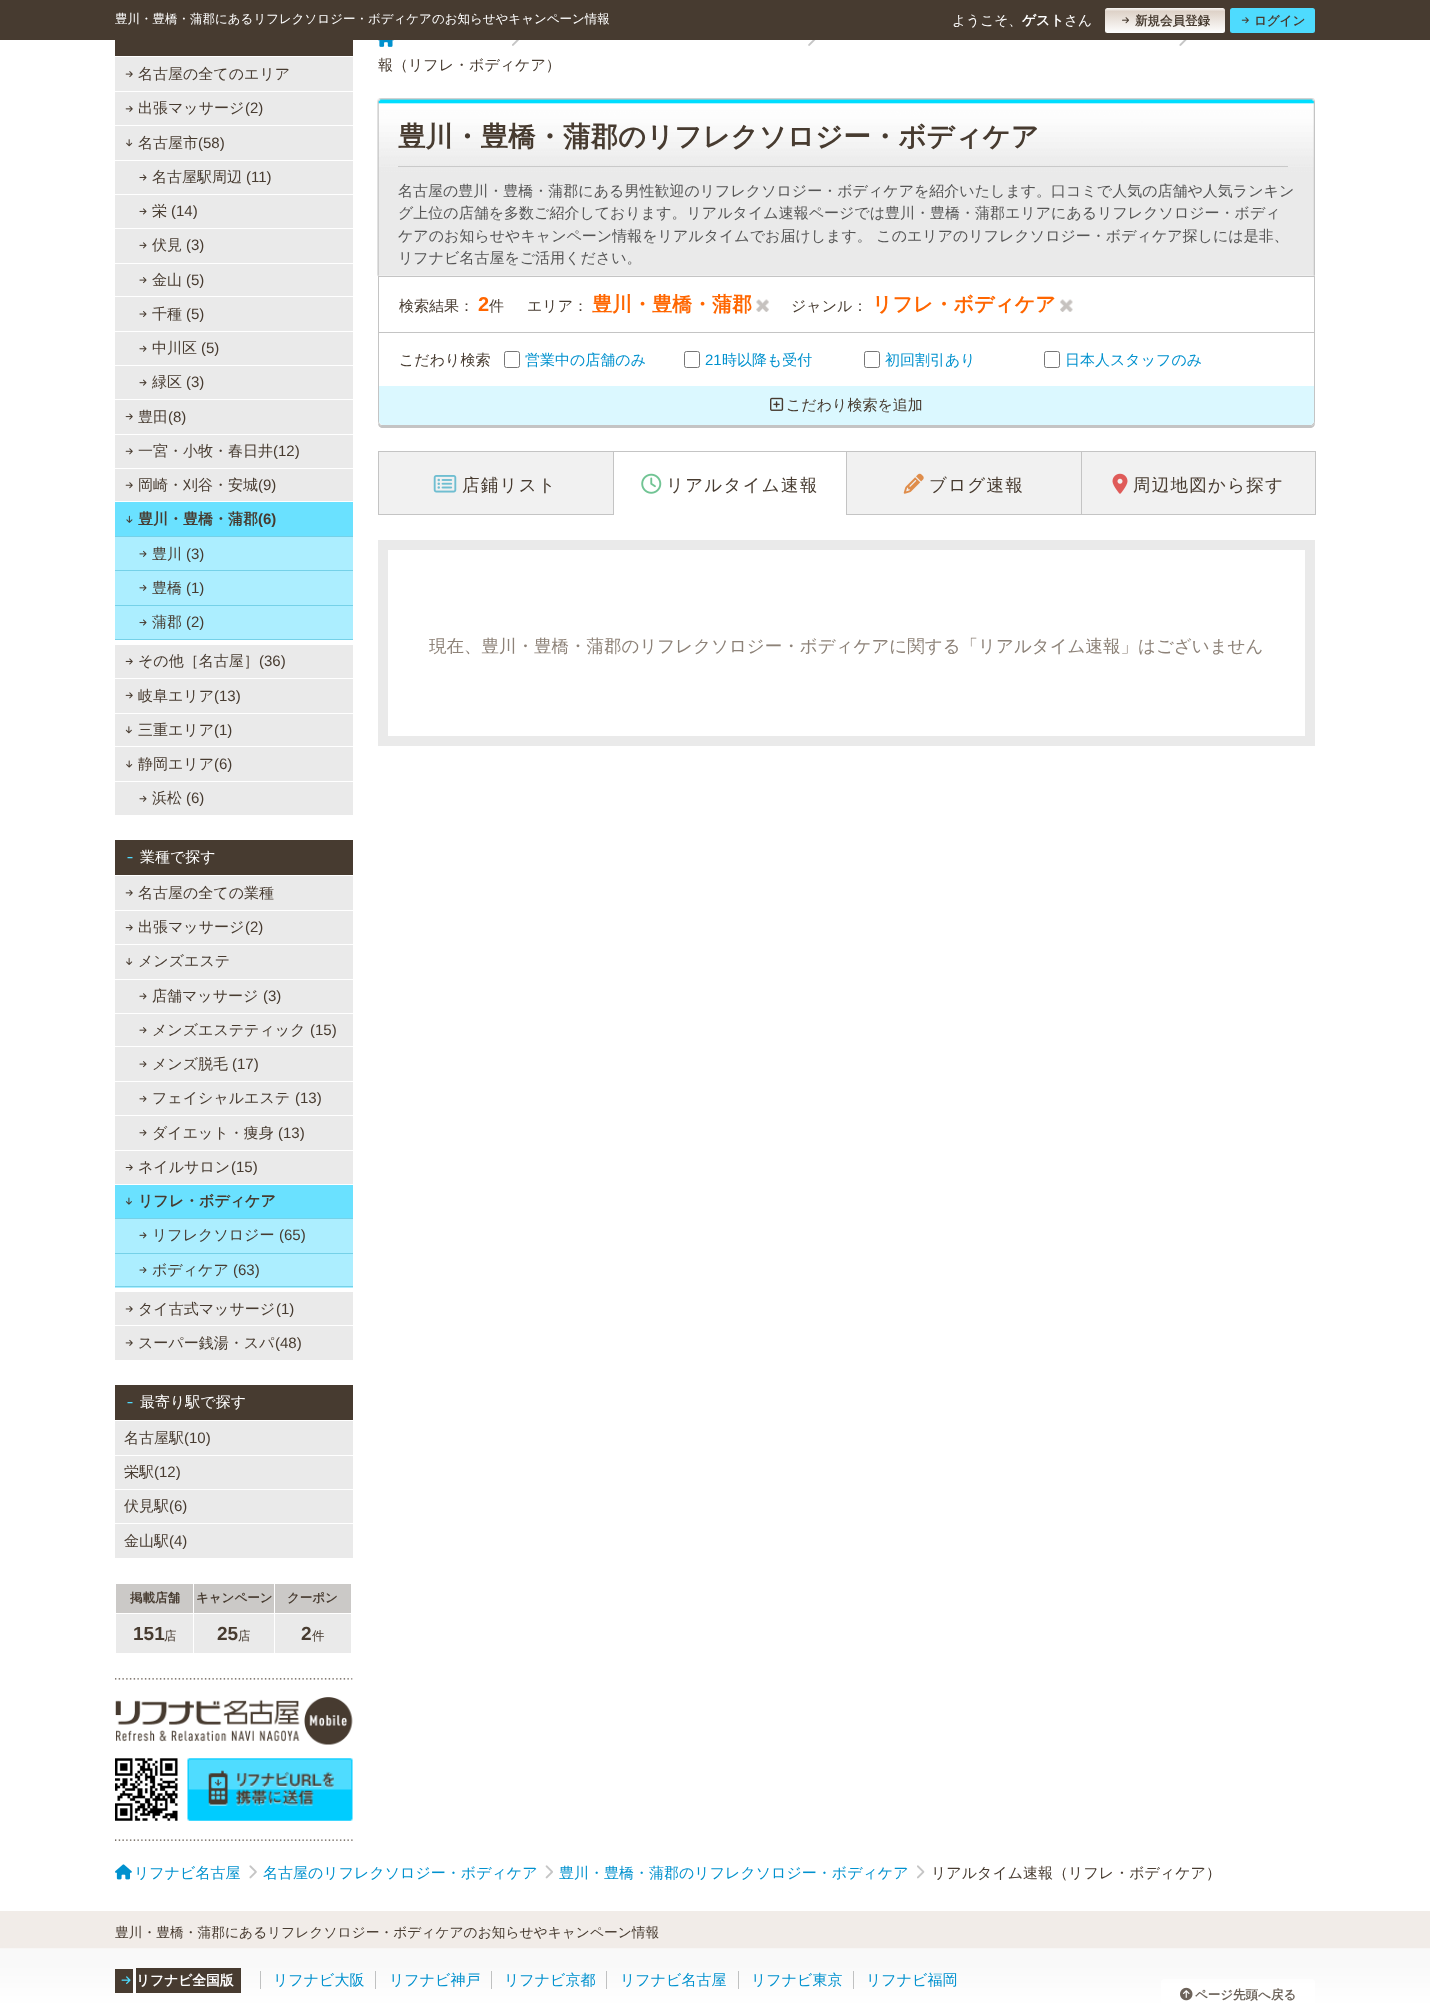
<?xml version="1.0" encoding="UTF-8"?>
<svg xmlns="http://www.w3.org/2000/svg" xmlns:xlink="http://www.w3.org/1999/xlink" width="1430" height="2006">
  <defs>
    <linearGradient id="g1" gradientUnits="userSpaceOnUse" x1="1165" y1="7.5" x2="1165" y2="33"><stop offset="0" stop-color="#fdfdfc" /><stop offset="0.15" stop-color="#ded2c8" /><stop offset="0.98" stop-color="#fdfdfc" /></linearGradient>
  </defs>
  <rect width="100%" height="100%" fill="#ffffff" />
  <rect width="1430" height="40" fill="#473b30" />
  <rect x="1105" y="8" width="120" height="25" rx="2.5" fill="url(#g1)" />
  <image x="1122" y="17" width="7" height="7" xlink:href="image1.png" />
  <rect x="1230" y="8" width="85" height="25" rx="2.5" fill="#4edbfe" />
  <image x="1241" y="17" width="8" height="7" xlink:href="image2.png" />
  <rect x="115" y="57" width="238" height="758" fill="#eaeaea" />
  <rect x="115" y="40" width="238" height="16" fill="#473b30" />
  <image x="125" y="71" width="8" height="7" xlink:href="image3.png" />
  <rect x="115" y="91" width="238" height="1" fill="#ffffff" />
  <image x="125" y="105" width="8" height="7" xlink:href="image4.png" />
  <rect x="115" y="125" width="238" height="1" fill="#ffffff" />
  <image x="126" y="139" width="7" height="8" xlink:href="image5.png" />
  <rect x="115" y="160" width="238" height="1" fill="#ffffff" />
  <image x="139" y="174" width="8" height="7" xlink:href="image6.png" />
  <rect x="115" y="194" width="238" height="1" fill="#ffffff" />
  <image x="139" y="208" width="8" height="7" xlink:href="image7.png" />
  <rect x="115" y="228" width="238" height="1" fill="#ffffff" />
  <image x="139" y="242" width="8" height="7" xlink:href="image8.png" />
  <rect x="115" y="263" width="238" height="1" fill="#ffffff" />
  <image x="139" y="277" width="8" height="7" xlink:href="image9.png" />
  <rect x="115" y="296" width="238" height="1" fill="#ffffff" />
  <image x="139" y="311" width="8" height="6" xlink:href="image10.png" />
  <rect x="115" y="331" width="238" height="1" fill="#ffffff" />
  <image x="139" y="345" width="8" height="7" xlink:href="image11.png" />
  <rect x="115" y="365" width="238" height="1" fill="#ffffff" />
  <image x="139" y="379" width="8" height="7" xlink:href="image12.png" />
  <rect x="115" y="399" width="238" height="1" fill="#ffffff" />
  <image x="125" y="413" width="8" height="7" xlink:href="image13.png" />
  <rect x="115" y="434" width="238" height="1" fill="#ffffff" />
  <image x="125" y="448" width="8" height="7" xlink:href="image14.png" />
  <rect x="115" y="468" width="238" height="1" fill="#ffffff" />
  <image x="125" y="482" width="8" height="7" xlink:href="image15.png" />
  <rect x="115" y="502" width="238" height="34" fill="#6ae1ff" />
  <rect x="115" y="501" width="238" height="1" fill="#ffffff" />
  <image x="126" y="515" width="7" height="8" xlink:href="image16.png" />
  <rect x="115" y="640" width="238" height="5" fill="#ffffff" />
  <rect x="115" y="537" width="238" height="33" fill="#aceeff" />
  <rect x="115" y="536" width="238" height="1" fill="#75d1e8" />
  <rect x="115" y="570" width="238" height="1" fill="#75d1e8" />
  <image x="139" y="550" width="8" height="7" xlink:href="image17.png" />
  <rect x="115" y="571" width="238" height="34" fill="#aceeff" />
  <rect x="115" y="605" width="238" height="1" fill="#75d1e8" />
  <image x="139" y="584" width="8" height="7" xlink:href="image18.png" />
  <rect x="115" y="606" width="238" height="33" fill="#aceeff" />
  <rect x="115" y="639" width="238" height="1" fill="#75d1e8" />
  <image x="139" y="619" width="8" height="7" xlink:href="image19.png" />
  <image x="125" y="658" width="8" height="7" xlink:href="image20.png" />
  <rect x="115" y="678" width="238" height="1" fill="#ffffff" />
  <image x="125" y="692" width="8" height="7" xlink:href="image21.png" />
  <rect x="115" y="713" width="238" height="1" fill="#ffffff" />
  <image x="125" y="726" width="7" height="8" xlink:href="image22.png" />
  <rect x="115" y="746" width="238" height="1" fill="#ffffff" />
  <image x="126" y="760" width="7" height="8" xlink:href="image23.png" />
  <rect x="115" y="781" width="238" height="1" fill="#ffffff" />
  <image x="139" y="795" width="8" height="7" xlink:href="image24.png" />
  <rect x="115" y="876" width="238" height="484" fill="#eaeaea" />
  <rect x="115" y="840" width="238" height="35" fill="#473b30" />
  <image x="127" y="857" width="6" height="2" xlink:href="image25.png" />
  <image x="125" y="889" width="8" height="7" xlink:href="image26.png" />
  <rect x="115" y="910" width="238" height="1" fill="#ffffff" />
  <image x="125" y="924" width="8" height="7" xlink:href="image27.png" />
  <rect x="115" y="944" width="238" height="1" fill="#ffffff" />
  <image x="126" y="957" width="7" height="8" xlink:href="image28.png" />
  <rect x="115" y="979" width="238" height="1" fill="#ffffff" />
  <image x="139" y="993" width="8" height="7" xlink:href="image29.png" />
  <rect x="115" y="1013" width="238" height="1" fill="#ffffff" />
  <image x="139" y="1027" width="8" height="7" xlink:href="image30.png" />
  <rect x="115" y="1046" width="238" height="1" fill="#ffffff" />
  <image x="139" y="1061" width="8" height="7" xlink:href="image31.png" />
  <rect x="115" y="1081" width="238" height="1" fill="#ffffff" />
  <image x="139" y="1095" width="8" height="7" xlink:href="image32.png" />
  <rect x="115" y="1115" width="238" height="1" fill="#ffffff" />
  <image x="139" y="1129" width="8" height="7" xlink:href="image33.png" />
  <rect x="115" y="1150" width="238" height="1" fill="#ffffff" />
  <image x="125" y="1164" width="8" height="7" xlink:href="image34.png" />
  <rect x="115" y="1185" width="238" height="33" fill="#6ae1ff" />
  <rect x="115" y="1184" width="238" height="1" fill="#ffffff" />
  <image x="125" y="1197" width="7" height="8" xlink:href="image35.png" />
  <rect x="115" y="1288" width="238" height="4" fill="#ffffff" />
  <rect x="115" y="1219" width="238" height="34" fill="#aceeff" />
  <rect x="115" y="1218" width="238" height="1" fill="#75d1e8" />
  <rect x="115" y="1253" width="238" height="1" fill="#75d1e8" />
  <image x="139" y="1232" width="8" height="7" xlink:href="image36.png" />
  <rect x="115" y="1254" width="238" height="34" fill="#aceeff" />
  <rect x="115" y="1286" width="238" height="1" fill="#75d1e8" />
  <image x="139" y="1267" width="8" height="7" xlink:href="image37.png" />
  <image x="125" y="1306" width="8" height="6" xlink:href="image38.png" />
  <rect x="115" y="1325" width="238" height="1" fill="#ffffff" />
  <image x="125" y="1339" width="8" height="7" xlink:href="image39.png" />
  <rect x="115" y="1421" width="238" height="137" fill="#eaeaea" />
  <rect x="115" y="1385" width="238" height="35" fill="#473b30" />
  <image x="127" y="1402" width="6" height="2" xlink:href="image25.png" />
  <rect x="115" y="1455" width="238" height="1" fill="#ffffff" />
  <rect x="115" y="1489" width="238" height="1" fill="#ffffff" />
  <rect x="115" y="1523" width="238" height="1" fill="#ffffff" />
  <rect x="116" y="1584" width="77" height="29" fill="#cbc9c7" />
  <rect x="194" y="1584" width="80" height="29" fill="#cbc9c7" />
  <rect x="275" y="1584" width="76" height="29" fill="#cbc9c7" />
  <rect x="116" y="1614" width="77" height="39" fill="#eaeaea" />
  <rect x="194" y="1614" width="80" height="39" fill="#eaeaea" />
  <rect x="275" y="1614" width="76" height="39" fill="#eaeaea" />
  <image x="115" y="1678" width="238" height="2" xlink:href="image40.png" />
  <image x="115" y="1697" width="238" height="48" xlink:href="image41.png" />
  <image x="115" y="1758" width="238" height="83" xlink:href="image42.png" />
  <image x="378" y="40" width="16" height="7" xlink:href="image43.png" />
  <image x="512" y="40" width="7" height="6" xlink:href="image44.png" />
  <image x="808" y="40" width="8" height="6" xlink:href="image45.png" />
  <image x="1179" y="40" width="8" height="6" xlink:href="image46.png" />
  <image x="377" y="98" width="938" height="178" xlink:href="image47.png" />
  <rect x="398" y="166" width="890" height="1" fill="#c9c9c9" />
  <rect x="378.5" y="276.5" width="936" height="56" fill="none" stroke="#c4c4c4" />
  <image x="756" y="299" width="13" height="13" xlink:href="image48.png" />
  <image x="1060" y="299" width="13" height="13" xlink:href="image49.png" />
  <path d="M 378 423 c 0 3 2 5 5 5 h 927 c 3 0 5 -2 5 -5 v -2 c 0 3 -2 5 -5 5 h -928 c -1 0 -3 -1 -4 -3 z" fill="#c4c4c4" />
  <path d="M 378 332 h 937 v 89 c 0 3 -2 5 -5 5 h -928 c -2 0 -4 -2 -4 -5 z m 1 0 h 935 v 89 c 0 2 -2 4 -4 4 h -928 c -2 0 -3 -2 -3 -4 z" fill="#c4c4c4" fill-rule="evenodd" />
  <rect x="504.5" y="351.5" width="15" height="16" rx="2" fill="none" stroke="#767676" />
  <rect x="684.5" y="351.5" width="15" height="16" rx="2" fill="none" stroke="#767676" />
  <rect x="864.5" y="351.5" width="15" height="16" rx="2" fill="none" stroke="#767676" />
  <rect x="1044.5" y="351.5" width="15" height="16" rx="2" fill="none" stroke="#767676" />
  <path d="M 379 386 h 935 v 35 c 0 2 -2 4 -4 4 h -927 c -2 0 -4 -2 -4 -4 z" fill="#dbf8ff" />
  <image x="770" y="397" width="14" height="14" xlink:href="image50.png" />
  <rect x="1315" y="451" width="1" height="64" fill="#c4c4c4" />
  <rect x="379" y="452" width="234" height="62" fill="#f1f1f1" />
  <rect x="378" y="451" width="937" height="1" fill="#c4c4c4" />
  <rect x="378" y="514" width="235" height="1" fill="#c4c4c4" />
  <rect x="378" y="451" width="1" height="64" fill="#c4c4c4" />
  <image x="433" y="475" width="24" height="18" xlink:href="image51.png" />
  <rect x="613" y="451" width="1" height="64" fill="#c4c4c4" />
  <image x="641" y="473" width="21" height="21" xlink:href="image52.png" />
  <rect x="847" y="452" width="234" height="62" fill="#f1f1f1" />
  <rect x="846" y="514" width="469" height="1" fill="#c4c4c4" />
  <rect x="846" y="451" width="1" height="64" fill="#c4c4c4" />
  <image x="903" y="473" width="21" height="21" xlink:href="image53.png" />
  <rect x="1082" y="452" width="233" height="62" fill="#f1f1f1" />
  <rect x="1081" y="451" width="1" height="64" fill="#c4c4c4" />
  <image x="1112" y="473" width="16" height="21" xlink:href="image54.png" />
  <rect x="383" y="545" width="927" height="196" fill="none" stroke="#eaeaea" stroke-width="10" />
  <image x="115" y="1864" width="17" height="16" xlink:href="image55.png" />
  <image x="249" y="1865" width="8" height="14" xlink:href="image56.png" />
  <image x="545" y="1865" width="8" height="14" xlink:href="image57.png" />
  <image x="917" y="1865" width="8" height="14" xlink:href="image58.png" />
  <rect y="1911" width="1430" height="38" fill="#f1ece8" />
  <image x="0" y="1948" width="1430" height="58" xlink:href="image59.png" />
  <rect x="115" y="1969" width="18" height="24" fill="#473b30" />
  <rect x="136" y="1968" width="105" height="25" fill="#473b30" />
  <image x="121" y="1976" width="10" height="8" xlink:href="image60.png" />
  <rect x="260" y="1971" width="1" height="18" fill="#c0c1c1" />
  <rect x="375" y="1971" width="1" height="18" fill="#c0c1c1" />
  <rect x="491" y="1971" width="1" height="18" fill="#c0c1c1" />
  <rect x="606" y="1971" width="1" height="18" fill="#c0c1c1" />
  <rect x="738" y="1971" width="1" height="18" fill="#c0c1c1" />
  <rect x="853" y="1971" width="1" height="18" fill="#c0c1c1" />
  <rect x="1161" y="1979" width="154" height="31" rx="4" fill="#ffffff" fill-opacity="0.8" />
  <image x="1180" y="1987" width="13" height="14" xlink:href="image61.png" />
  <text x="115" y="23" style="font-family: WenQuanYi Zen Hei; font-size: 12.5px; font-weight: 500; fill: #ffffff">豊川・豊橋・蒲郡にあるリフレクソロジー・ボディケアのお知らせやキャンペーン情報</text>
  <text x="952" y="25" style="font-family: WenQuanYi Zen Hei; font-size: 13.75px; font-weight: 500; fill: #ffffff">ようこそ、</text>
  <text x="1022" y="25" style="font-family: WenQuanYi Zen Hei; font-size: 13.75px; font-weight: bold; fill: #ffffff">ゲスト</text>
  <text x="1064" y="25" style="font-family: WenQuanYi Zen Hei; font-size: 13.75px; font-weight: 500; fill: #ffffff">さん</text>
  <text x="1135" y="25" style="font-family: WenQuanYi Zen Hei; font-size: 12.5px; font-weight: bold; fill: #473b30">新規会員登録</text>
  <text x="1254" y="25" style="font-family: WenQuanYi Zen Hei; font-size: 12.5px; font-weight: bold; fill: #473b30">ログイン</text>
  <text x="138" y="79" style="font-family: WenQuanYi Zen Hei; font-size: 15px; font-weight: 500; fill: #473b30">名古屋の全てのエリア</text>
  <text x="138" y="113" style="font-family: WenQuanYi Zen Hei; font-size: 15px; font-weight: 500; fill: #473b30">出張マッサージ</text>
  <text x="245" y="113" style="font-family: Liberation Sans; font-size: 15px; fill: #473b30">(2)</text>
  <text x="138" y="148" style="font-family: WenQuanYi Zen Hei; font-size: 15px; font-weight: 500; fill: #473b30">名古屋市</text>
  <text x="198" y="148" style="font-family: Liberation Sans; font-size: 15px; fill: #473b30">(58)</text>
  <text x="152" y="182" style="font-family: WenQuanYi Zen Hei; font-size: 15px; font-weight: 500; fill: #473b30">名古屋駅周辺</text>
  <text x="246" y="182" style="font-family: Liberation Sans; font-size: 15px; fill: #473b30">(11)</text>
  <text x="152" y="216" style="font-family: WenQuanYi Zen Hei; font-size: 15px; font-weight: 500; fill: #473b30">栄</text>
  <text x="171" y="216" style="font-family: Liberation Sans; font-size: 15px; fill: #473b30">(14)</text>
  <text x="152" y="250" style="font-family: WenQuanYi Zen Hei; font-size: 15px; font-weight: 500; fill: #473b30">伏見</text>
  <text x="186" y="250" style="font-family: Liberation Sans; font-size: 15px; fill: #473b30">(3)</text>
  <text x="152" y="285" style="font-family: WenQuanYi Zen Hei; font-size: 15px; font-weight: 500; fill: #473b30">金山</text>
  <text x="186" y="285" style="font-family: Liberation Sans; font-size: 15px; fill: #473b30">(5)</text>
  <text x="152" y="319" style="font-family: WenQuanYi Zen Hei; font-size: 15px; font-weight: 500; fill: #473b30">千種</text>
  <text x="186" y="319" style="font-family: Liberation Sans; font-size: 15px; fill: #473b30">(5)</text>
  <text x="152" y="353" style="font-family: WenQuanYi Zen Hei; font-size: 15px; font-weight: 500; fill: #473b30">中川区</text>
  <text x="201" y="353" style="font-family: Liberation Sans; font-size: 15px; fill: #473b30">(5)</text>
  <text x="152" y="387" style="font-family: WenQuanYi Zen Hei; font-size: 15px; font-weight: 500; fill: #473b30">緑区</text>
  <text x="186" y="387" style="font-family: Liberation Sans; font-size: 15px; fill: #473b30">(3)</text>
  <text x="138" y="422" style="font-family: WenQuanYi Zen Hei; font-size: 15px; font-weight: 500; fill: #473b30">豊田</text>
  <text x="168" y="422" style="font-family: Liberation Sans; font-size: 15px; fill: #473b30">(8)</text>
  <text x="138" y="456" style="font-family: WenQuanYi Zen Hei; font-size: 15px; font-weight: 500; fill: #473b30">一宮・小牧・春日井</text>
  <text x="273" y="456" style="font-family: Liberation Sans; font-size: 15px; fill: #473b30">(12)</text>
  <text x="138" y="490" style="font-family: WenQuanYi Zen Hei; font-size: 15px; font-weight: 500; fill: #473b30">岡崎・刈谷・安城</text>
  <text x="258" y="490" style="font-family: Liberation Sans; font-size: 15px; fill: #473b30">(9)</text>
  <text x="138" y="524" style="font-family: WenQuanYi Zen Hei; font-size: 15px; font-weight: bold; fill: #473b30">豊川・豊橋・蒲郡</text>
  <text x="258" y="524" style="font-family: Liberation Sans; font-size: 15px; font-weight: bold; fill: #473b30">(6)</text>
  <text x="152" y="559" style="font-family: WenQuanYi Zen Hei; font-size: 15px; font-weight: 500; fill: #473b30">豊川</text>
  <text x="186" y="559" style="font-family: Liberation Sans; font-size: 15px; fill: #473b30">(3)</text>
  <text x="152" y="593" style="font-family: WenQuanYi Zen Hei; font-size: 15px; font-weight: 500; fill: #473b30">豊橋</text>
  <text x="186" y="593" style="font-family: Liberation Sans; font-size: 15px; fill: #473b30">(1)</text>
  <text x="152" y="627" style="font-family: WenQuanYi Zen Hei; font-size: 15px; font-weight: 500; fill: #473b30">蒲郡</text>
  <text x="186" y="627" style="font-family: Liberation Sans; font-size: 15px; fill: #473b30">(2)</text>
  <text x="138" y="666" style="font-family: WenQuanYi Zen Hei; font-size: 15px; font-weight: 500; fill: #473b30">その他［名古屋］</text>
  <text x="259" y="666" style="font-family: Liberation Sans; font-size: 15px; fill: #473b30">(36)</text>
  <text x="138" y="701" style="font-family: WenQuanYi Zen Hei; font-size: 15px; font-weight: 500; fill: #473b30">岐阜エリア</text>
  <text x="214" y="701" style="font-family: Liberation Sans; font-size: 15px; fill: #473b30">(13)</text>
  <text x="138" y="735" style="font-family: WenQuanYi Zen Hei; font-size: 15px; font-weight: 500; fill: #473b30">三重エリア</text>
  <text x="214" y="735" style="font-family: Liberation Sans; font-size: 15px; fill: #473b30">(1)</text>
  <text x="138" y="769" style="font-family: WenQuanYi Zen Hei; font-size: 15px; font-weight: 500; fill: #473b30">静岡エリア</text>
  <text x="214" y="769" style="font-family: Liberation Sans; font-size: 15px; fill: #473b30">(6)</text>
  <text x="152" y="803" style="font-family: WenQuanYi Zen Hei; font-size: 15px; font-weight: 500; fill: #473b30">浜松</text>
  <text x="186" y="803" style="font-family: Liberation Sans; font-size: 15px; fill: #473b30">(6)</text>
  <text x="140" y="862" style="font-family: WenQuanYi Zen Hei; font-size: 15px; font-weight: 500; fill: #ffffff">業種で探す</text>
  <text x="138" y="898" style="font-family: WenQuanYi Zen Hei; font-size: 15px; font-weight: 500; fill: #473b30">名古屋の全ての業種</text>
  <text x="138" y="932" style="font-family: WenQuanYi Zen Hei; font-size: 15px; font-weight: 500; fill: #473b30">出張マッサージ</text>
  <text x="245" y="932" style="font-family: Liberation Sans; font-size: 15px; fill: #473b30">(2)</text>
  <text x="138" y="966" style="font-family: WenQuanYi Zen Hei; font-size: 15px; font-weight: 500; fill: #473b30">メンズエステ</text>
  <text x="152" y="1001" style="font-family: WenQuanYi Zen Hei; font-size: 15px; font-weight: 500; fill: #473b30">店舗マッサージ</text>
  <text x="263" y="1001" style="font-family: Liberation Sans; font-size: 15px; fill: #473b30">(3)</text>
  <text x="152" y="1035" style="font-family: WenQuanYi Zen Hei; font-size: 15px; font-weight: 500; fill: #473b30">メンズエステティック</text>
  <text x="310" y="1035" style="font-family: Liberation Sans; font-size: 15px; fill: #473b30">(15)</text>
  <text x="152" y="1069" style="font-family: WenQuanYi Zen Hei; font-size: 15px; font-weight: 500; fill: #473b30">メンズ脱毛</text>
  <text x="232" y="1069" style="font-family: Liberation Sans; font-size: 15px; fill: #473b30">(17)</text>
  <text x="152" y="1103" style="font-family: WenQuanYi Zen Hei; font-size: 15px; font-weight: 500; fill: #473b30">フェイシャルエステ</text>
  <text x="295" y="1103" style="font-family: Liberation Sans; font-size: 15px; fill: #473b30">(13)</text>
  <text x="152" y="1138" style="font-family: WenQuanYi Zen Hei; font-size: 15px; font-weight: 500; fill: #473b30">ダイエット・痩身</text>
  <text x="278" y="1138" style="font-family: Liberation Sans; font-size: 15px; fill: #473b30">(13)</text>
  <text x="138" y="1172" style="font-family: WenQuanYi Zen Hei; font-size: 15px; font-weight: 500; fill: #473b30">ネイルサロン</text>
  <text x="231" y="1172" style="font-family: Liberation Sans; font-size: 15px; fill: #473b30">(15)</text>
  <text x="138" y="1206" style="font-family: WenQuanYi Zen Hei; font-size: 15px; font-weight: bold; fill: #473b30">リフレ・ボディケア</text>
  <text x="152" y="1240" style="font-family: WenQuanYi Zen Hei; font-size: 15px; font-weight: 500; fill: #473b30">リフレクソロジー</text>
  <text x="279" y="1240" style="font-family: Liberation Sans; font-size: 15px; fill: #473b30">(65)</text>
  <text x="152" y="1275" style="font-family: WenQuanYi Zen Hei; font-size: 15px; font-weight: 500; fill: #473b30">ボディケア</text>
  <text x="233" y="1275" style="font-family: Liberation Sans; font-size: 15px; fill: #473b30">(63)</text>
  <text x="138" y="1314" style="font-family: WenQuanYi Zen Hei; font-size: 15px; font-weight: 500; fill: #473b30">タイ古式マッサージ</text>
  <text x="276" y="1314" style="font-family: Liberation Sans; font-size: 15px; fill: #473b30">(1)</text>
  <text x="138" y="1348" style="font-family: WenQuanYi Zen Hei; font-size: 15px; font-weight: 500; fill: #473b30">スーパー銭湯・スパ</text>
  <text x="275" y="1348" style="font-family: Liberation Sans; font-size: 15px; fill: #473b30">(48)</text>
  <text x="140" y="1407" style="font-family: WenQuanYi Zen Hei; font-size: 15px; font-weight: 500; fill: #ffffff">最寄り駅で探す</text>
  <text x="124" y="1443" style="font-family: WenQuanYi Zen Hei; font-size: 15px; font-weight: 500; fill: #473b30">名古屋駅</text>
  <text x="184" y="1443" style="font-family: Liberation Sans; font-size: 15px; fill: #473b30">(10)</text>
  <text x="124" y="1477" style="font-family: WenQuanYi Zen Hei; font-size: 15px; font-weight: 500; fill: #473b30">栄駅</text>
  <text x="154" y="1477" style="font-family: Liberation Sans; font-size: 15px; fill: #473b30">(12)</text>
  <text x="124" y="1511" style="font-family: WenQuanYi Zen Hei; font-size: 15px; font-weight: 500; fill: #473b30">伏見駅</text>
  <text x="169" y="1511" style="font-family: Liberation Sans; font-size: 15px; fill: #473b30">(6)</text>
  <text x="124" y="1546" style="font-family: WenQuanYi Zen Hei; font-size: 15px; font-weight: 500; fill: #473b30">金山駅</text>
  <text x="169" y="1546" style="font-family: Liberation Sans; font-size: 15px; fill: #473b30">(4)</text>
  <text x="130" y="1602" style="font-family: WenQuanYi Zen Hei; font-size: 12.5px; font-weight: bold; fill: #473b30">掲載店舗</text>
  <text x="196" y="1602" style="font-family: WenQuanYi Zen Hei; font-size: 12.5px; font-weight: bold; fill: #473b30">キャンペーン</text>
  <text x="287" y="1602" style="font-family: WenQuanYi Zen Hei; font-size: 12.5px; font-weight: bold; fill: #473b30">クーポン</text>
  <text x="133" y="1640" style="font-family: Liberation Sans; font-size: 19px; font-weight: bold; fill: #473b30">151</text>
  <text x="164" y="1640" style="font-family: WenQuanYi Zen Hei; font-size: 12.5px; font-weight: 500; fill: #473b30">店</text>
  <text x="217" y="1640" style="font-family: Liberation Sans; font-size: 19px; font-weight: bold; fill: #473b30">25</text>
  <text x="238" y="1640" style="font-family: WenQuanYi Zen Hei; font-size: 12.5px; font-weight: 500; fill: #473b30">店</text>
  <text x="301" y="1640" style="font-family: Liberation Sans; font-size: 19px; font-weight: bold; fill: #473b30">2</text>
  <text x="312" y="1640" style="font-family: WenQuanYi Zen Hei; font-size: 12.5px; font-weight: 500; fill: #473b30">件</text>
  <text x="378" y="70" style="font-family: WenQuanYi Zen Hei; font-size: 15px; font-weight: 500; fill: #473b30">報（リフレ・ボディケア）</text>
  <text x="398" y="146" style="font-family: WenQuanYi Zen Hei; font-size: 27.5px; font-weight: bold; fill: #473b30">豊川・豊橋・蒲郡のリフレクソロジー・ボディケア</text>
  <text x="398" y="196" style="font-family: WenQuanYi Zen Hei; font-size: 15px; font-weight: 500; fill: #555555">名古屋の豊川・豊橋・蒲郡にある男性歓迎のリフレクソロジー・ボディケアを紹介いたします。口コミで人気の店舗や人気ランキン</text>
  <text x="398" y="218" style="font-family: WenQuanYi Zen Hei; font-size: 15px; font-weight: 500; fill: #555555">グ上位の店舗を多数ご紹介しております。リアルタイム速報ページでは豊川・豊橋・蒲郡エリアにあるリフレクソロジー・ボディ</text>
  <text x="398" y="241" style="font-family: WenQuanYi Zen Hei; font-size: 15px; font-weight: 500; fill: #555555">ケアのお知らせやキャンペーン情報をリアルタイムでお届けします。 このエリアのリフレクソロジー・ボディケア探しには是非、</text>
  <text x="398" y="263" style="font-family: WenQuanYi Zen Hei; font-size: 15px; font-weight: 500; fill: #555555">リフナビ名古屋をご活用ください。</text>
  <text x="399" y="311" style="font-family: WenQuanYi Zen Hei; font-size: 15px; font-weight: 500; fill: #473b30">検索結果：</text>
  <text x="478" y="311" style="font-family: Liberation Sans; font-size: 20px; font-weight: bold; fill: #ff6600">2</text>
  <text x="489" y="311" style="font-family: WenQuanYi Zen Hei; font-size: 15px; font-weight: 500; fill: #473b30">件</text>
  <text x="527" y="311" style="font-family: WenQuanYi Zen Hei; font-size: 15px; font-weight: 500; fill: #473b30">エリア：</text>
  <text x="592" y="311" style="font-family: WenQuanYi Zen Hei; font-size: 20px; font-weight: bold; fill: #ff6600">豊川・豊橋・蒲郡</text>
  <text x="791" y="311" style="font-family: WenQuanYi Zen Hei; font-size: 15px; font-weight: 500; fill: #473b30">ジャンル：</text>
  <text x="872" y="311" style="font-family: WenQuanYi Zen Hei; font-size: 20px; font-weight: bold; fill: #ff6600">リフレ・ボディケア</text>
  <text x="399" y="365" style="font-family: WenQuanYi Zen Hei; font-size: 15px; font-weight: 500; fill: #473b30">こだわり検索</text>
  <text x="525" y="365" style="font-family: WenQuanYi Zen Hei; font-size: 15px; font-weight: 500; fill: #0091ce">営業中の店舗のみ</text>
  <text x="705" y="365" style="font-family: Liberation Sans; font-size: 15px; fill: #0091ce">21</text>
  <text x="722" y="365" style="font-family: WenQuanYi Zen Hei; font-size: 15px; font-weight: 500; fill: #0091ce">時以降も受付</text>
  <text x="885" y="365" style="font-family: WenQuanYi Zen Hei; font-size: 15px; font-weight: 500; fill: #0091ce">初回割引あり</text>
  <text x="1065" y="365" style="font-family: WenQuanYi Zen Hei; font-size: 15px; font-weight: 500; fill: #0091ce">日本人スタッフのみ</text>
  <text x="786" y="410" style="font-family: WenQuanYi Zen Hei; font-size: 15px; font-weight: 500; fill: #473b30">こだわり検索を追加</text>
  <text x="462" y="491" style="font-family: WenQuanYi Zen Hei; font-size: 17.5px; font-weight: 500; letter-spacing: 1.25px; fill: #473b30">店鋪リスト</text>
  <text x="666" y="491" style="font-family: WenQuanYi Zen Hei; font-size: 17.5px; font-weight: 500; letter-spacing: 1.25px; fill: #473b30">リアルタイム速報</text>
  <text x="929" y="491" style="font-family: WenQuanYi Zen Hei; font-size: 17.5px; font-weight: 500; letter-spacing: 1.25px; fill: #473b30">ブログ速報</text>
  <text x="1133" y="491" style="font-family: WenQuanYi Zen Hei; font-size: 17.5px; font-weight: 500; letter-spacing: 1.25px; fill: #473b30">周辺地図から探す</text>
  <text x="429" y="652" style="font-family: WenQuanYi Zen Hei; font-size: 17.5px; font-weight: 500; fill: #8d8278">現在、豊川・豊橋・蒲郡のリフレクソロジー・ボディケアに関する「リアルタイム速報」はございません</text>
  <text x="134" y="1878" style="font-family: WenQuanYi Zen Hei; font-size: 15px; font-weight: 500; fill: #0091ce">リフナビ名古屋</text>
  <text x="263" y="1878" style="font-family: WenQuanYi Zen Hei; font-size: 15px; font-weight: 500; fill: #0091ce">名古屋のリフレクソロジー・ボディケア</text>
  <text x="559" y="1878" style="font-family: WenQuanYi Zen Hei; font-size: 15px; font-weight: 500; fill: #0091ce">豊川・豊橋・蒲郡のリフレクソロジー・ボディケア</text>
  <text x="931" y="1878" style="font-family: WenQuanYi Zen Hei; font-size: 15px; font-weight: 500; fill: #473b30">リアルタイム速報（リフレ・ボディケア）</text>
  <text x="115" y="1937" style="font-family: WenQuanYi Zen Hei; font-size: 13.75px; font-weight: 500; fill: #473b30">豊川・豊橋・蒲郡にあるリフレクソロジー・ボディケアのお知らせやキャンペーン情報</text>
  <text x="136" y="1985" style="font-family: WenQuanYi Zen Hei; font-size: 13.75px; font-weight: bold; fill: #ffffff">リフナビ全国版</text>
  <text x="273" y="1985" style="font-family: WenQuanYi Zen Hei; font-size: 15px; font-weight: 500; fill: #0091ce">リフナビ大阪</text>
  <text x="389" y="1985" style="font-family: WenQuanYi Zen Hei; font-size: 15px; font-weight: 500; fill: #0091ce">リフナビ神戸</text>
  <text x="504" y="1985" style="font-family: WenQuanYi Zen Hei; font-size: 15px; font-weight: 500; fill: #0091ce">リフナビ京都</text>
  <text x="620" y="1985" style="font-family: WenQuanYi Zen Hei; font-size: 15px; font-weight: 500; fill: #0091ce">リフナビ名古屋</text>
  <text x="751" y="1985" style="font-family: WenQuanYi Zen Hei; font-size: 15px; font-weight: 500; fill: #0091ce">リフナビ東京</text>
  <text x="866" y="1985" style="font-family: WenQuanYi Zen Hei; font-size: 15px; font-weight: 500; fill: #0091ce">リフナビ福岡</text>
  <text x="1195" y="1999" style="font-family: WenQuanYi Zen Hei; font-size: 12.5px; font-weight: bold; fill: #6b6259">ページ先頭へ戻る</text>
</svg>
